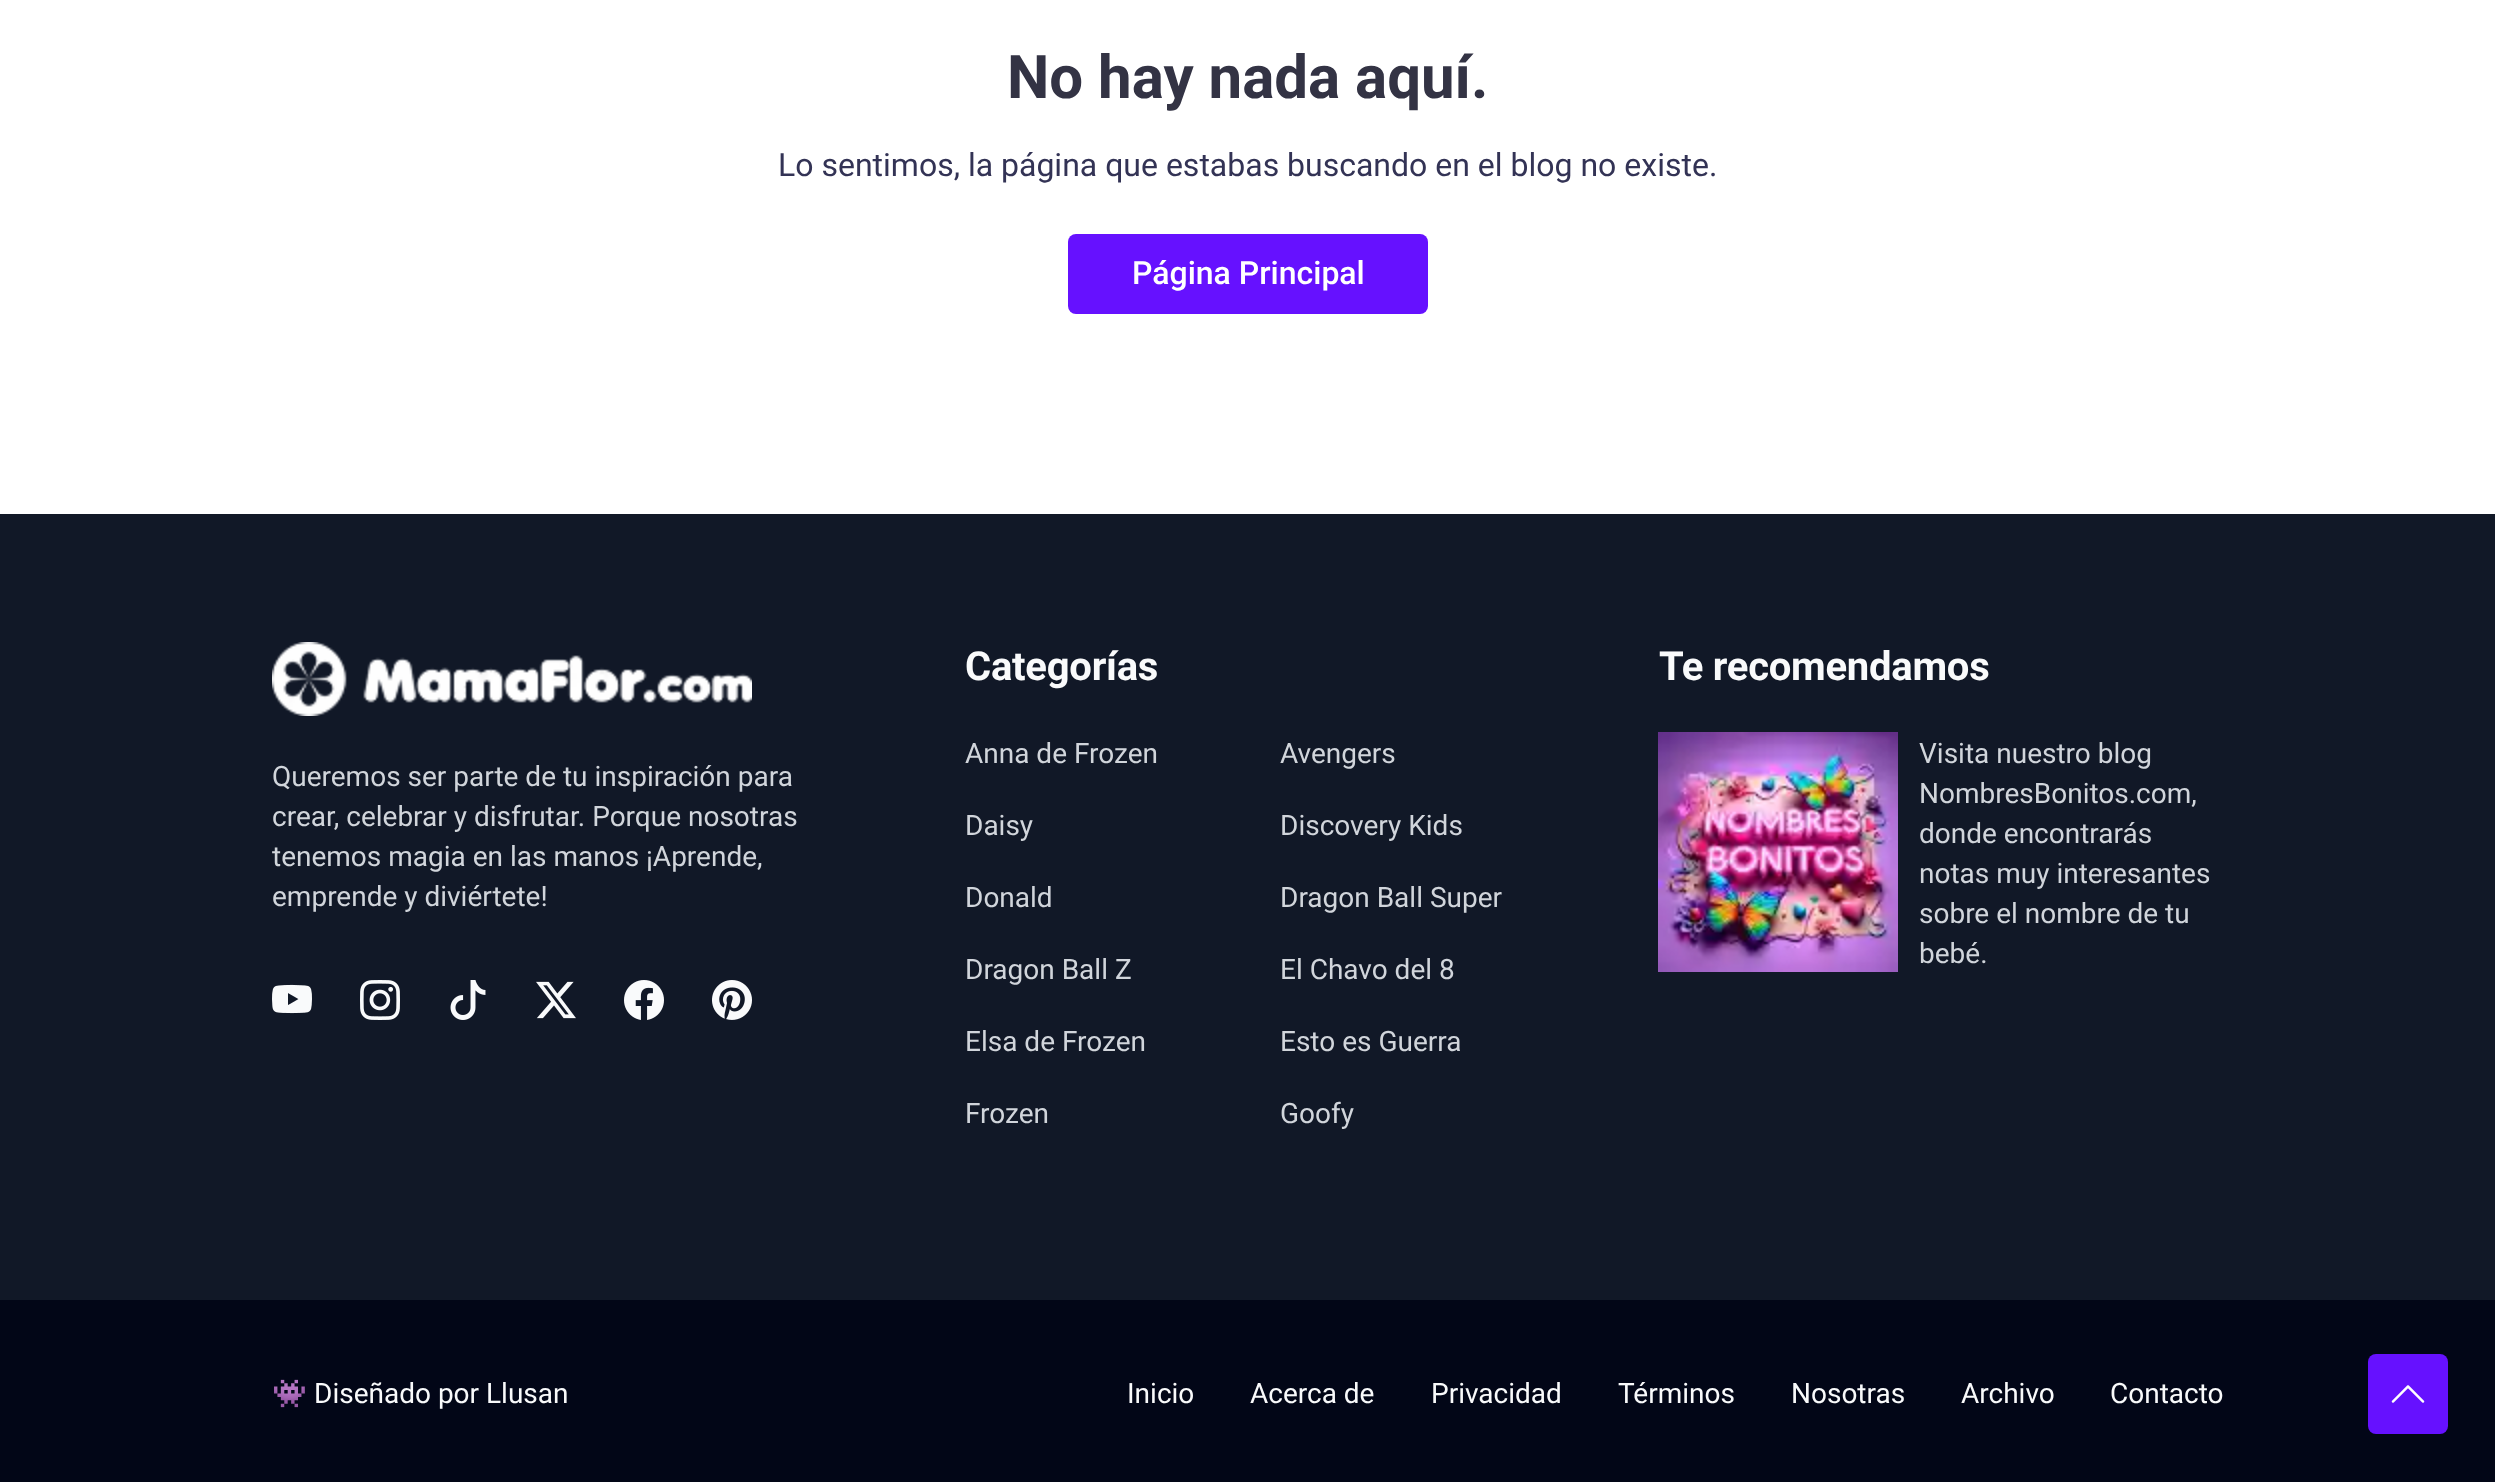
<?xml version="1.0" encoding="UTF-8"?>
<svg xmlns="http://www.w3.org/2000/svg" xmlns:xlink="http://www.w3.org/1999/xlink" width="2495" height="1482">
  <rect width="100%" height="100%" fill="#ffffff" />
  <rect x="1068" y="234" width="360" height="80" rx="8" fill="#6611ff" />
  <rect y="514" width="2495" height="786" fill="#111827" />
  <image x="272" y="642" width="480" height="74" xlink:href="image1.png" />
  <image x="272" y="984" width="40" height="30" xlink:href="image2.png" />
  <image x="360" y="980" width="40" height="40" xlink:href="image3.png" />
  <image x="450" y="980" width="36" height="40" xlink:href="image4.png" />
  <image x="536" y="981" width="40" height="38" xlink:href="image5.png" />
  <image x="624" y="980" width="40" height="40" xlink:href="image6.png" />
  <image x="712" y="980" width="40" height="40" xlink:href="image7.png" />
  <image x="1658" y="732" width="240" height="240" xlink:href="image8.png" />
  <rect y="1300" width="2495" height="182" fill="#020617" />
  <rect x="2368" y="1354" width="80" height="80" rx="8" fill="#6611ff" />
  <image x="2391" y="1385" width="34" height="18" xlink:href="image9.png" />
  <text x="1007" y="98" style="font-family: Roboto; font-size: 60px; font-weight: bold; fill: #333344">No hay nada aquí.</text>
  <text x="778" y="176" style="font-family: Roboto; font-size: 32px; fill: #333355">Lo sentimos, la página que estabas buscando en el blog no existe.</text>
  <text x="1132" y="284" style="font-family: Roboto; font-size: 32px; font-weight: 500; fill: #ffffff">Página Principal</text>
  <text x="272" y="786" style="font-family: Roboto; font-size: 28px; fill: #d1d5db">Queremos ser parte de tu inspiración para</text>
  <text x="272" y="826" style="font-family: Roboto; font-size: 28px; fill: #d1d5db">crear, celebrar y disfrutar. Porque nosotras</text>
  <text x="272" y="866" style="font-family: Roboto; font-size: 28px; fill: #d1d5db">tenemos magia en las manos ¡Aprende,</text>
  <text x="272" y="906" style="font-family: Roboto; font-size: 28px; fill: #d1d5db">emprende y diviértete!</text>
  <text x="965" y="680" style="font-family: Roboto; font-size: 40px; font-weight: bold; letter-spacing: -0.25px; fill: #f9fafb">Categorías</text>
  <text x="965" y="763" style="font-family: Roboto; font-size: 28px; fill: #d1d5db">Anna de Frozen</text>
  <text x="1280" y="763" style="font-family: Roboto; font-size: 28px; fill: #d1d5db">Avengers</text>
  <text x="965" y="835" style="font-family: Roboto; font-size: 28px; fill: #d1d5db">Daisy</text>
  <text x="1280" y="835" style="font-family: Roboto; font-size: 28px; fill: #d1d5db">Discovery Kids</text>
  <text x="965" y="907" style="font-family: Roboto; font-size: 28px; fill: #d1d5db">Donald</text>
  <text x="1280" y="907" style="font-family: Roboto; font-size: 28px; fill: #d1d5db">Dragon Ball Super</text>
  <text x="965" y="979" style="font-family: Roboto; font-size: 28px; fill: #d1d5db">Dragon Ball Z</text>
  <text x="1280" y="979" style="font-family: Roboto; font-size: 28px; fill: #d1d5db">El Chavo del 8</text>
  <text x="965" y="1051" style="font-family: Roboto; font-size: 28px; fill: #d1d5db">Elsa de Frozen</text>
  <text x="1280" y="1051" style="font-family: Roboto; font-size: 28px; fill: #d1d5db">Esto es Guerra</text>
  <text x="965" y="1123" style="font-family: Roboto; font-size: 28px; fill: #d1d5db">Frozen</text>
  <text x="1280" y="1123" style="font-family: Roboto; font-size: 28px; fill: #d1d5db">Goofy</text>
  <text x="1659" y="680" style="font-family: Roboto; font-size: 40px; font-weight: bold; letter-spacing: -0.25px; fill: #f9fafb">Te recomendamos</text>
  <text x="1919" y="763" style="font-family: Roboto; font-size: 28px; fill: #d1d5db">Visita nuestro blog</text>
  <text x="1919" y="803" style="font-family: Roboto; font-size: 28px; fill: #d1d5db">NombresBonitos.com,</text>
  <text x="1919" y="843" style="font-family: Roboto; font-size: 28px; fill: #d1d5db">donde encontrarás</text>
  <text x="1919" y="883" style="font-family: Roboto; font-size: 28px; fill: #d1d5db">notas muy interesantes</text>
  <text x="1919" y="923" style="font-family: Roboto; font-size: 28px; fill: #d1d5db">sobre el nombre de tu</text>
  <text x="1919" y="963" style="font-family: Roboto; font-size: 28px; fill: #d1d5db">bebé.</text>
  <text x="272" y="1403" style="font-family: Noto Color Emoji; font-size: 28px; fill: #f9fafb">👾</text>
  <text x="314" y="1403" style="font-family: Roboto; font-size: 28px; fill: #f9fafb">Diseñado por Llusan</text>
  <text x="1127" y="1403" style="font-family: Roboto; font-size: 28px; fill: #f9fafb">Inicio</text>
  <text x="1250" y="1403" style="font-family: Roboto; font-size: 28px; fill: #f9fafb">Acerca de</text>
  <text x="1431" y="1403" style="font-family: Roboto; font-size: 28px; fill: #f9fafb">Privacidad</text>
  <text x="1618" y="1403" style="font-family: Roboto; font-size: 28px; fill: #f9fafb">Términos</text>
  <text x="1791" y="1403" style="font-family: Roboto; font-size: 28px; fill: #f9fafb">Nosotras</text>
  <text x="1961" y="1403" style="font-family: Roboto; font-size: 28px; fill: #f9fafb">Archivo</text>
  <text x="2110" y="1403" style="font-family: Roboto; font-size: 28px; fill: #f9fafb">Contacto</text>
</svg>
